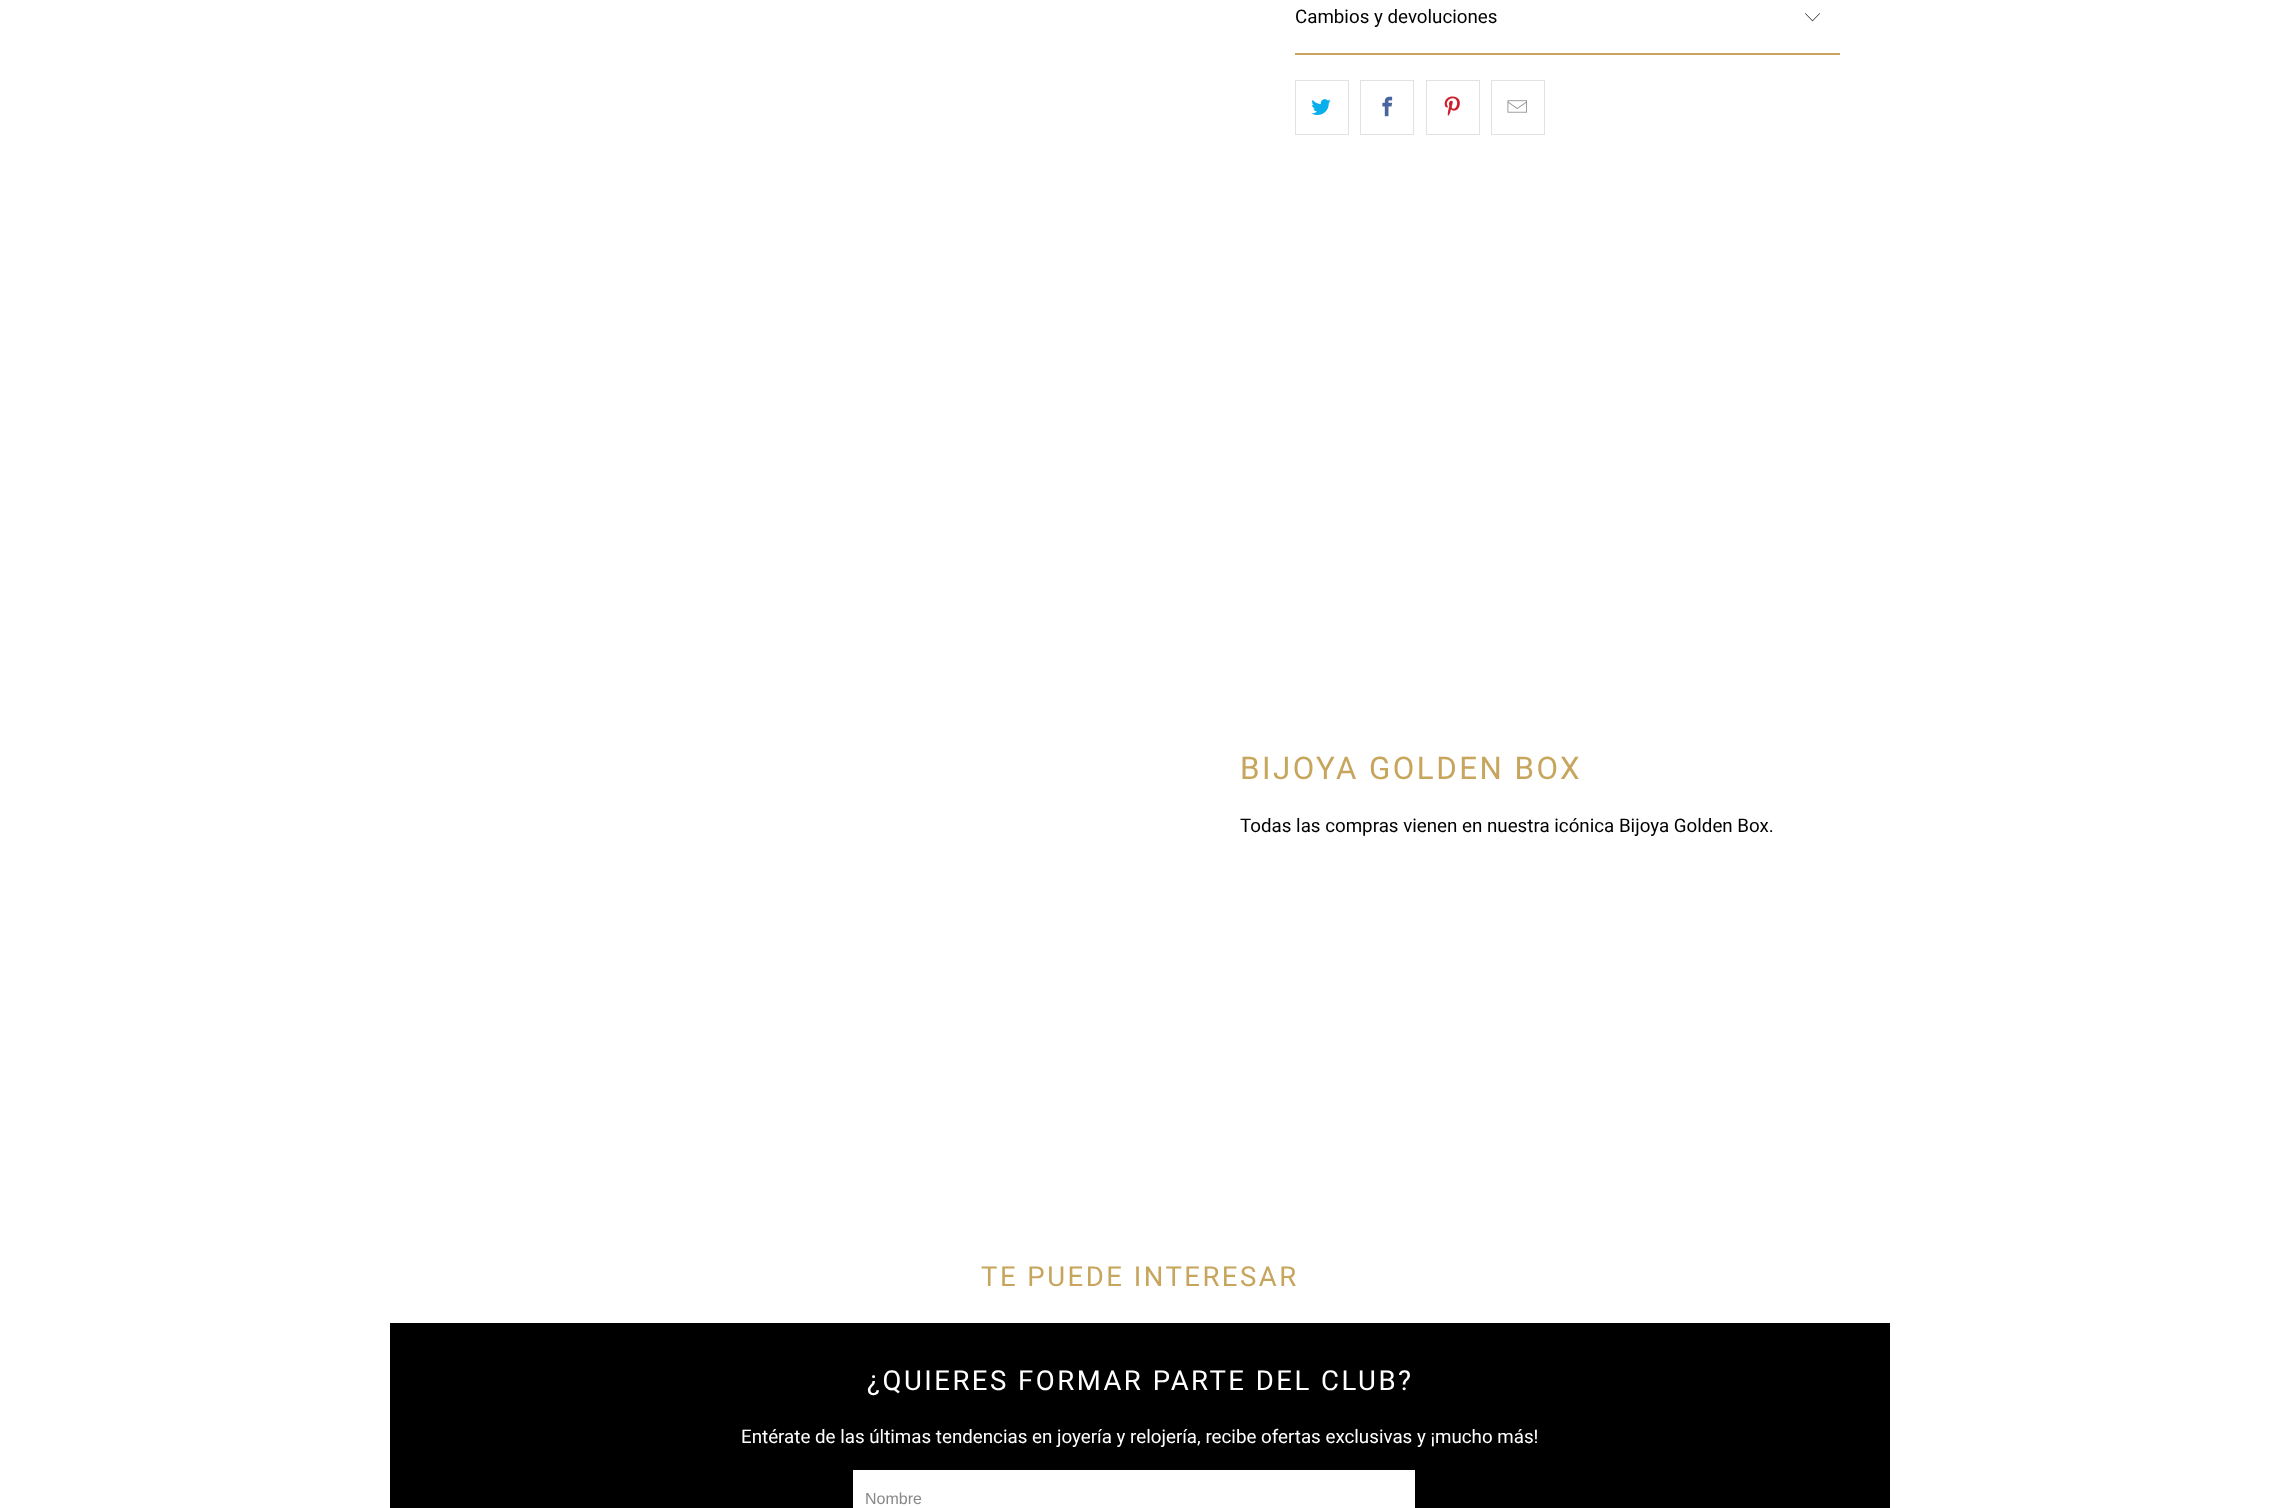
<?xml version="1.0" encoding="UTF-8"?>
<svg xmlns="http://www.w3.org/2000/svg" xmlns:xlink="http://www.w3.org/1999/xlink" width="2279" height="1508">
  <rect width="100%" height="100%" fill="#ffffff" />
  <rect x="1295" y="53" width="545" height="2" fill="#c7a55d" />
  <image x="1805" y="13" width="15" height="9" xlink:href="image1.png" />
  <rect x="1295.5" y="80.5" width="53" height="54" fill="none" stroke="#e2e2e2" />
  <image x="1311" y="99" width="20" height="16" xlink:href="image2.png" />
  <rect x="1360.5" y="80.5" width="53" height="54" fill="none" stroke="#e2e2e2" />
  <image x="1382" y="96" width="11" height="21" xlink:href="image3.png" />
  <rect x="1426.5" y="80.5" width="53" height="54" fill="none" stroke="#e2e2e2" />
  <image x="1444" y="96" width="16" height="20" xlink:href="image4.png" />
  <rect x="1491.5" y="80.5" width="53" height="54" fill="none" stroke="#e2e2e2" />
  <image x="1507" y="100" width="20" height="13" xlink:href="image5.png" />
  <rect x="390" y="1323" width="1500" height="185" fill="#000000" />
  <rect x="853" y="1470" width="562" height="38" fill="#ffffff" />
  <text x="1295" y="23" style="font-family: Roboto; font-size: 18.75px; fill: #000000">Cambios y devoluciones</text>
  <text x="1240" y="779" style="font-family: Roboto; font-size: 31.25px; letter-spacing: 2.5px; fill: #c7a55d">BIJOYA GOLDEN BOX</text>
  <text x="1240" y="832" style="font-family: Roboto; font-size: 18.75px; fill: #000000">Todas las compras vienen en nuestra icónica Bijoya Golden Box.</text>
  <text x="981" y="1286" style="font-family: Roboto; font-size: 27.5px; letter-spacing: 2.5px; fill: #c7a55d">TE PUEDE INTERESAR</text>
  <text x="867" y="1390" style="font-family: Roboto; font-size: 27.5px; letter-spacing: 2.5px; fill: #ffffff">¿QUIERES FORMAR PARTE DEL CLUB?</text>
  <text x="741" y="1443" style="font-family: Roboto; font-size: 18.75px; fill: #ffffff">Entérate de las últimas tendencias en joyería y relojería, recibe ofertas exclusivas y ¡mucho más!</text>
  <text x="865" y="1504" style="font-family: Liberation Sans; font-size: 16px; fill: #888888">Nombre</text>
</svg>
